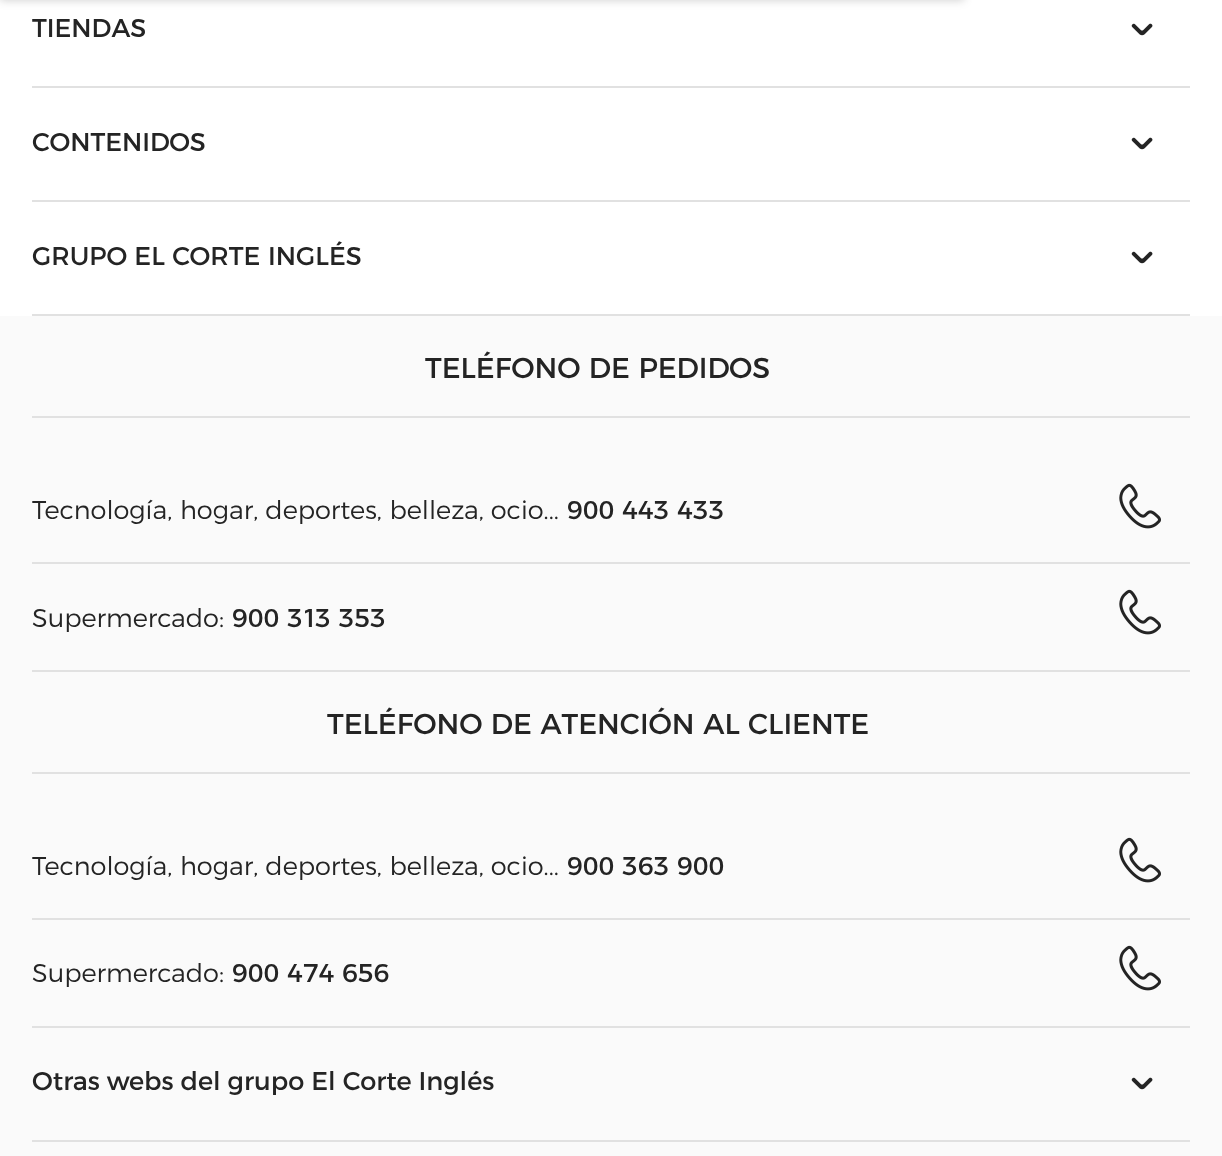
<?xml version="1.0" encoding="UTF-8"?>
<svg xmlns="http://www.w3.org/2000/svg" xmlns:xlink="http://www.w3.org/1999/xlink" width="1222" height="1156">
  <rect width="100%" height="100%" fill="#ffffff" />
  <rect y="-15" width="964" height="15" fill="#000000" fill-opacity="0.2" filter="blur(5px)" />
  <rect x="32" y="86" width="1158" height="2" fill="#e1e1e1" />
  <image x="1131" y="23" width="22" height="13" xlink:href="image1.png" />
  <rect x="32" y="200" width="1158" height="2" fill="#e1e1e1" />
  <image x="1131" y="137" width="22" height="13" xlink:href="image1.png" />
  <rect x="32" y="314" width="1158" height="2" fill="#e1e1e1" />
  <image x="1131" y="251" width="22" height="13" xlink:href="image1.png" />
  <rect y="316" width="1222" height="840" fill="#fafafa" />
  <rect x="32" y="416" width="1158" height="2" fill="#e1e1e1" />
  <rect x="32" y="562" width="1158" height="2" fill="#e1e1e1" />
  <image x="1119" y="483" width="42" height="46" xlink:href="image2.png" />
  <rect x="32" y="670" width="1158" height="2" fill="#e1e1e1" />
  <image x="1119" y="589" width="42" height="46" xlink:href="image2.png" />
  <rect x="32" y="772" width="1158" height="2" fill="#e1e1e1" />
  <rect x="32" y="918" width="1158" height="2" fill="#e1e1e1" />
  <image x="1119" y="837" width="42" height="46" xlink:href="image2.png" />
  <rect x="32" y="1026" width="1158" height="2" fill="#e1e1e1" />
  <image x="1119" y="945" width="42" height="46" xlink:href="image2.png" />
  <rect x="32" y="1140" width="1158" height="2" fill="#e1e1e1" />
  <image x="1131" y="1077" width="22" height="13" xlink:href="image3.png" />
  <text x="32" y="37" style="font-family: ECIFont; font-size: 25.6px; fill: #242424">TIENDAS</text>
  <text x="32" y="151" style="font-family: ECIFont; font-size: 25.6px; fill: #242424">CONTENIDOS</text>
  <text x="32" y="265" style="font-family: ECIFont; font-size: 25.6px; fill: #242424">GRUPO EL CORTE INGLÉS</text>
  <text x="425" y="378" style="font-family: ECIFont; font-size: 28.75px; fill: #242424">TELÉFONO DE PEDIDOS</text>
  <text x="32" y="519" style="font-family: ECIFont; font-size: 25.6px; font-weight: 300; fill: #242424">Tecnología, hogar, deportes, belleza, ocio...</text>
  <text x="567" y="519" style="font-family: ECIFont; font-size: 25.6px; fill: #242424">900 443 433</text>
  <text x="32" y="627" style="font-family: ECIFont; font-size: 25.6px; font-weight: 300; fill: #242424">Supermercado:</text>
  <text x="232" y="627" style="font-family: ECIFont; font-size: 25.6px; fill: #242424">900 313 353</text>
  <text x="327" y="734" style="font-family: ECIFont; font-size: 28.75px; fill: #242424">TELÉFONO DE ATENCIÓN AL CLIENTE</text>
  <text x="32" y="875" style="font-family: ECIFont; font-size: 25.6px; font-weight: 300; fill: #242424">Tecnología, hogar, deportes, belleza, ocio...</text>
  <text x="567" y="875" style="font-family: ECIFont; font-size: 25.6px; fill: #242424">900 363 900</text>
  <text x="32" y="982" style="font-family: ECIFont; font-size: 25.6px; font-weight: 300; fill: #242424">Supermercado:</text>
  <text x="232" y="982" style="font-family: ECIFont; font-size: 25.6px; fill: #242424">900 474 656</text>
  <text x="32" y="1090" style="font-family: ECIFont; font-size: 25.6px; fill: #242424">Otras webs del grupo El Corte Inglés</text>
</svg>
